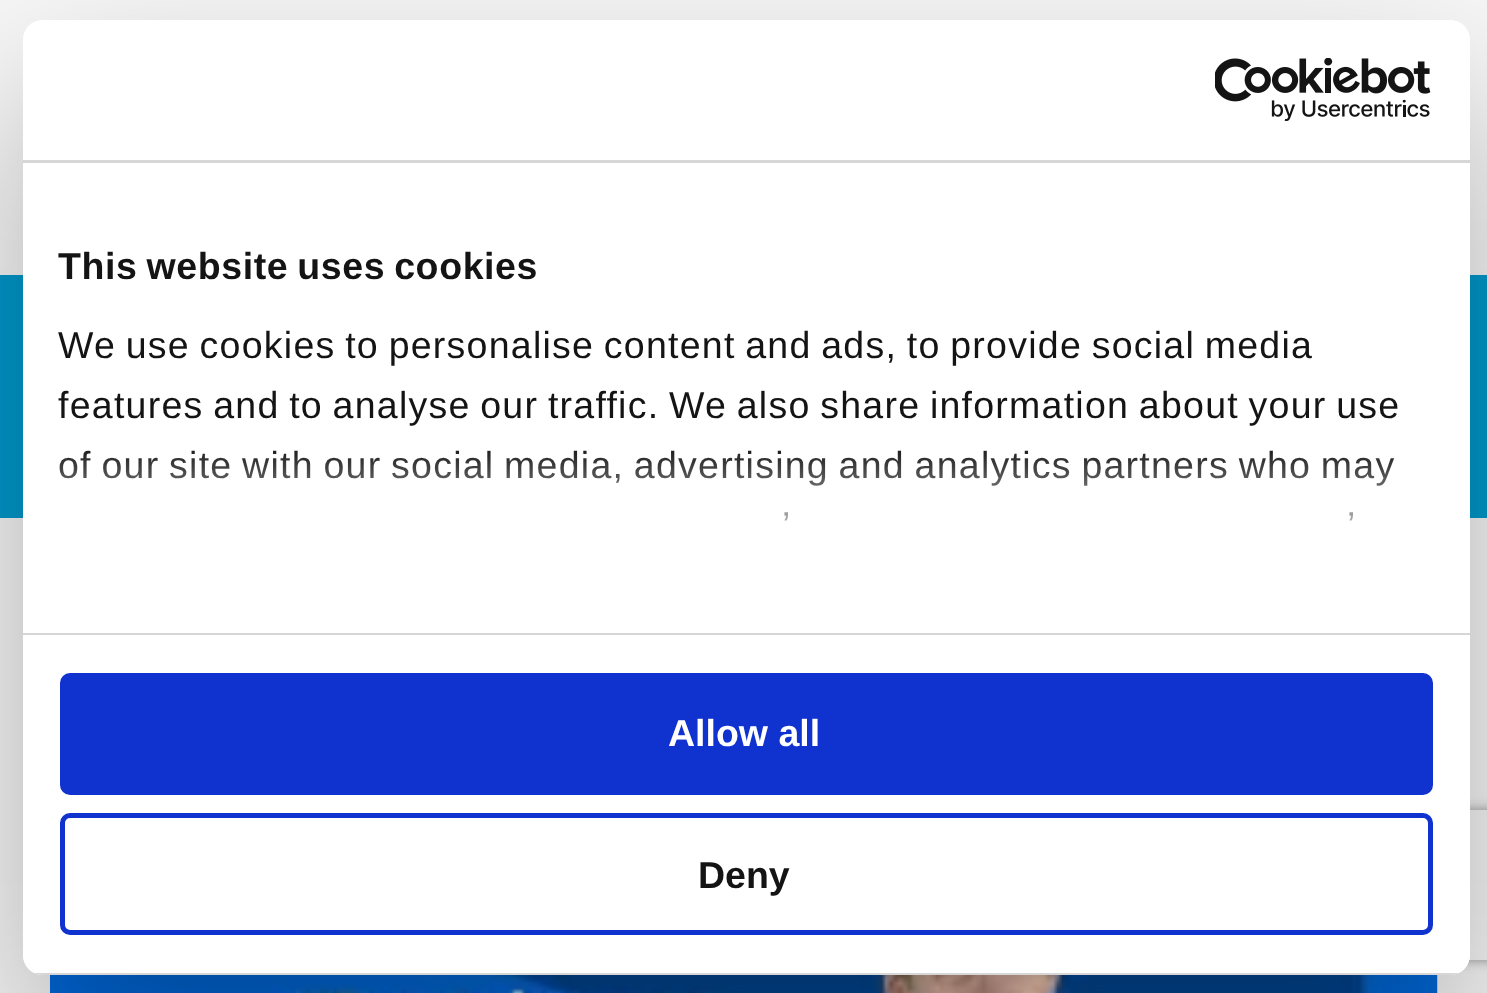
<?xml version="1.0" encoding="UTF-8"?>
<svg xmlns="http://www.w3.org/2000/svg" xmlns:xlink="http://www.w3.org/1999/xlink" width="1487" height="993">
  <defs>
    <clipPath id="clip1"><path d="M 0 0 h 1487 v 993 h -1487 z m 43 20 h 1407 c 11 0 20 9 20 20 v 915 c 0 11 -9 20 -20 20 h -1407 c -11 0 -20 -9 -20 -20 v -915 c 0 -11 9 -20 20 -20 z" clip-rule="evenodd" /></clipPath>
    <clipPath id="clip2"><path d="M 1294 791 h 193 v 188 h -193 z m 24 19 h 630 c 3 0 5 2 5 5 v 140 c 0 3 -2 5 -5 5 h -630 c -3 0 -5 -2 -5 -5 v -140 c 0 -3 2 -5 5 -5 z" clip-rule="evenodd" /></clipPath>
    <clipPath id="clip3"><rect x="23" y="20" width="1447" height="955" rx="20" /></clipPath>
    <linearGradient id="g1" gradientUnits="userSpaceOnUse" x1="729" y1="633" x2="729" y2="445"><stop offset="0" stop-color="#ffffff" /><stop offset="0.5" stop-color="#ffffff" stop-opacity="0.8" /><stop offset="1" stop-color="#ffffff" stop-opacity="0" /></linearGradient>
  </defs>
  <rect width="100%" height="100%" fill="#f7f7f7" />
  <rect y="275" width="1487" height="243" fill="#0099cd" />
  <rect x="1437" y="975" width="1" height="18" fill="#ffffff" />
  <image x="50" y="975" width="1388" height="18" xlink:href="image2.png" />
  <g clip-path="url(#clip1)">
    <rect x="23" y="100" width="1447" height="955" rx="20" fill="#000000" fill-opacity="0.3" filter="blur(85px)" />
  </g>
  <g clip-path="url(#clip2)">
    <rect x="1313" y="810" width="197" height="150" rx="5" fill="#808080" filter="blur(6px)" />
  </g>
  <rect x="23" y="20" width="1447" height="955" rx="20" fill="#ffffff" />
  <rect x="23" y="160" width="1447" height="3" fill="#d6d6d6" />
  <image x="1215" y="58" width="216" height="63" xlink:href="image1.png" />
  <rect x="23" y="633" width="1447" height="2" fill="#d6d6d6" />
  <g clip-path="url(#clip3)">
    <rect x="34" y="973" width="1425" height="2" fill="#d6d6d6" />
  </g>
  <rect x="62.5" y="675.5" width="1368" height="117" rx="7.5" fill="#1032cf" stroke="#1032cf" stroke-width="5" />
  <rect x="62.5" y="815.5" width="1368" height="117" rx="7.5" fill="none" stroke="#1032cf" stroke-width="5" />
  <text x="58" y="279" word-spacing="-2" style="font-family: Liberation Sans; font-size: 37.5px; font-weight: bold; letter-spacing: 0.6px; fill: #141414">This website uses cookies</text>
  <text x="58" y="358" word-spacing="-2" style="font-family: Liberation Sans; font-size: 37.5px; letter-spacing: 1.25px; fill: #141414">We use cookies to personalise content and ads, to provide social media</text>
  <text x="58" y="418" word-spacing="-2" style="font-family: Liberation Sans; font-size: 37.5px; letter-spacing: 1.25px; fill: #141414">features and to analyse our traffic. We also share information about your use</text>
  <text x="58" y="478" word-spacing="-2" style="font-family: Liberation Sans; font-size: 37.5px; letter-spacing: 1.25px; fill: #141414">of our site with our social media, advertising and analytics partners who may</text>
  <text x="782" y="538" word-spacing="-2" style="font-family: Liberation Sans; font-size: 37.5px; letter-spacing: 1.25px; fill: #141414">’</text>
  <text x="1347" y="538" word-spacing="-2" style="font-family: Liberation Sans; font-size: 37.5px; letter-spacing: 1.25px; fill: #141414">’</text>
  <rect x="59" y="451" width="1335" height="70" fill="url(#g1)" />
  <text x="668" y="746" style="font-family: Liberation Sans; font-size: 37.5px; font-weight: bold; fill: #ffffff">Allow all</text>
  <text x="698" y="888" style="font-family: Liberation Sans; font-size: 37.5px; font-weight: bold; fill: #141414">Deny</text>
</svg>
